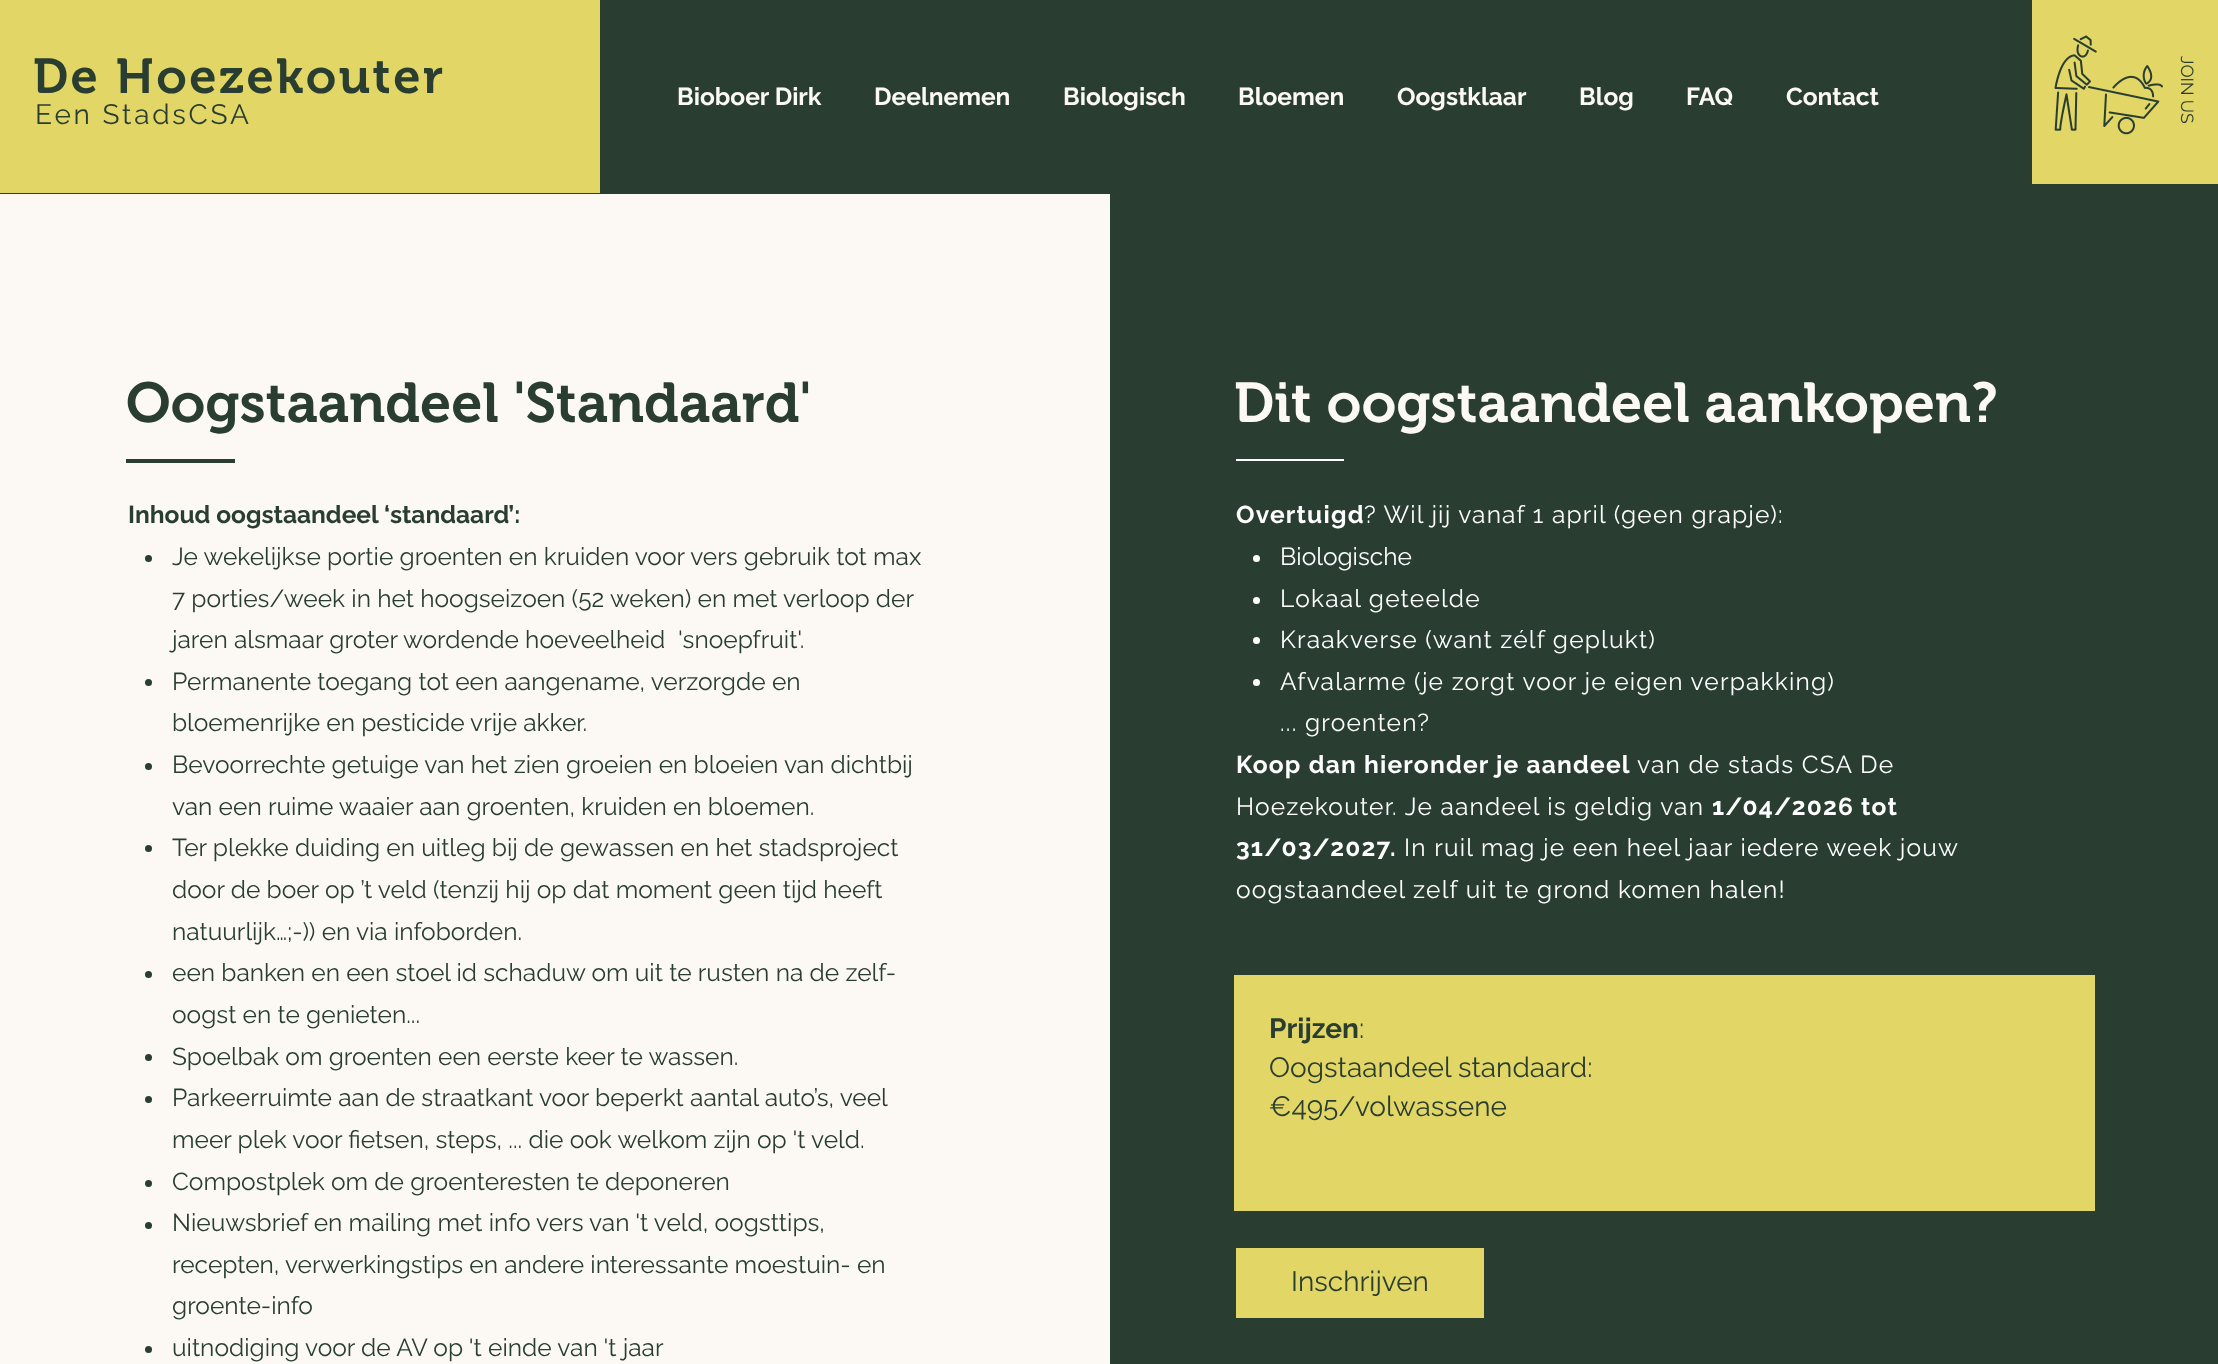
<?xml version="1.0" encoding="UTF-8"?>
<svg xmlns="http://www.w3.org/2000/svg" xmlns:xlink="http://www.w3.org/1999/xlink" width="2218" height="1364">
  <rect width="100%" height="100%" fill="#293e31" />
  <rect width="600" height="193" fill="#e2d667" />
  <rect x="2032" width="186" height="184" fill="#e2d667" />
  <image x="2054" y="35" width="109" height="100" xlink:href="image1.png" />
  <rect y="194" width="1110" height="1170" fill="#fcf9f4" />
  <rect x="126" y="459" width="109" height="4" fill="#293e31" />
  <circle cx="148.5" cy="558.5" r="3.5" fill="#293e31" />
  <circle cx="148.5" cy="682.5" r="3.5" fill="#293e31" />
  <circle cx="148.5" cy="766.5" r="3.5" fill="#293e31" />
  <circle cx="148.5" cy="848.5" r="3.5" fill="#293e31" />
  <circle cx="148.5" cy="974.5" r="3.5" fill="#293e31" />
  <circle cx="148.5" cy="1057.5" r="3.5" fill="#293e31" />
  <circle cx="148.5" cy="1099.5" r="3.5" fill="#293e31" />
  <circle cx="148.5" cy="1183.5" r="3.5" fill="#293e31" />
  <circle cx="148.5" cy="1225.5" r="3.5" fill="#293e31" />
  <circle cx="148.5" cy="1349.5" r="3.5" fill="#293e31" />
  <rect x="1236" y="459" width="108" height="2" fill="#ffffff" />
  <circle cx="1256.5" cy="558.5" r="3.5" fill="#ffffff" />
  <circle cx="1256.5" cy="600.5" r="3.5" fill="#ffffff" />
  <circle cx="1256.5" cy="640.5" r="3.5" fill="#ffffff" />
  <circle cx="1256.5" cy="682.5" r="3.5" fill="#ffffff" />
  <rect x="1234" y="975" width="861" height="236" fill="#e2d667" />
  <rect x="1236" y="1248" width="248" height="70" fill="#e2d667" />
  <text x="33" y="93" style="font-family: 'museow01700'; font-size: 49px; font-weight: 600; letter-spacing: 2.5px; fill: #293e31">De Hoezekouter</text>
  <text x="35" y="124" style="font-family: Raleway; font-size: 28px; letter-spacing: 2.75px; fill: #293e31">Een StadsCSA</text>
  <text x="677" y="105" style="font-family: Raleway; font-size: 24.5px; font-weight: bold; fill: #fcf9f4">Bioboer Dirk</text>
  <text x="874" y="105" style="font-family: Raleway; font-size: 24.5px; font-weight: bold; fill: #fcf9f4">Deelnemen</text>
  <text x="1063" y="105" style="font-family: Raleway; font-size: 24.5px; font-weight: bold; fill: #fcf9f4">Biologisch</text>
  <text x="1238" y="105" style="font-family: Raleway; font-size: 24.5px; font-weight: bold; fill: #fcf9f4">Bloemen</text>
  <text x="1397" y="105" style="font-family: Raleway; font-size: 24.5px; font-weight: bold; fill: #fcf9f4">Oogstklaar</text>
  <text x="1579" y="105" style="font-family: Raleway; font-size: 24.5px; font-weight: bold; fill: #fcf9f4">Blog</text>
  <text x="1686" y="105" style="font-family: Raleway; font-size: 24.5px; font-weight: bold; fill: #fcf9f4">FAQ</text>
  <text x="1786" y="105" style="font-family: Raleway; font-size: 24.5px; font-weight: bold; fill: #fcf9f4">Contact</text>
  <text x="2181" y="56" transform="rotate(90 2181 56)" style="font-family: Raleway; font-size: 17.5px; fill: #293e31">JOIN US</text>
  <text x="126" y="422" style="font-family: 'museow01700'; font-size: 56px; font-weight: 600; fill: #293e31">Oogstaandeel 'Standaard'</text>
  <text x="128" y="523" style="font-family: Raleway; font-size: 24.5px; font-weight: bold; fill: #293e31">Inhoud oogstaandeel ‘standaard’:</text>
  <text x="172" y="565" style="font-family: Raleway; font-size: 24.5px; fill: #293e31">Je wekelijkse portie groenten en kruiden voor vers gebruik tot max</text>
  <text x="172" y="607" style="font-family: Raleway; font-size: 24.5px; fill: #293e31">7 porties/week in het hoogseizoen (52 weken) en met verloop der</text>
  <text x="172" y="648" style="font-family: Raleway; font-size: 24.5px; fill: #293e31">jaren alsmaar groter wordende hoeveelheid</text>
  <text x="678" y="648" style="font-family: Raleway; font-size: 24.5px; fill: #293e31">'snoepfruit'.</text>
  <text x="172" y="690" style="font-family: Raleway; font-size: 24.5px; fill: #293e31">Permanente toegang tot een aangename, verzorgde en</text>
  <text x="172" y="731" style="font-family: Raleway; font-size: 24.5px; fill: #293e31">bloemenrijke en pesticide vrije akker.</text>
  <text x="172" y="773" style="font-family: Raleway; font-size: 24.5px; fill: #293e31">Bevoorrechte getuige van het zien groeien en bloeien van dichtbij</text>
  <text x="172" y="815" style="font-family: Raleway; font-size: 24.5px; fill: #293e31">van een ruime waaier aan groenten, kruiden en bloemen.</text>
  <text x="172" y="856" style="font-family: Raleway; font-size: 24.5px; fill: #293e31">Ter plekke duiding en uitleg bij de gewassen en het stadsproject</text>
  <text x="172" y="898" style="font-family: Raleway; font-size: 24.5px; fill: #293e31">door de boer op ’t veld (tenzij hij op dat moment geen tijd heeft</text>
  <text x="172" y="940" style="font-family: Raleway; font-size: 24.5px; fill: #293e31">natuurlijk…;-)) en via infoborden.</text>
  <text x="172" y="981" style="font-family: Raleway; font-size: 24.5px; fill: #293e31">een banken en een stoel id schaduw om uit te rusten na de zelf-</text>
  <text x="172" y="1023" style="font-family: Raleway; font-size: 24.5px; fill: #293e31">oogst en te genieten...</text>
  <text x="172" y="1065" style="font-family: Raleway; font-size: 24.5px; fill: #293e31">Spoelbak om groenten een eerste keer te wassen.</text>
  <text x="172" y="1106" style="font-family: Raleway; font-size: 24.5px; fill: #293e31">Parkeerruimte aan de straatkant voor beperkt aantal auto’s, veel</text>
  <text x="172" y="1148" style="font-family: Raleway; font-size: 24.5px; fill: #293e31">meer plek voor fietsen, steps, ... die ook welkom zijn op 't veld.</text>
  <text x="172" y="1190" style="font-family: Raleway; font-size: 24.5px; fill: #293e31">Compostplek om de groenteresten te deponeren</text>
  <text x="172" y="1231" style="font-family: Raleway; font-size: 24.5px; fill: #293e31">Nieuwsbrief en mailing met info vers van 't veld, oogsttips,</text>
  <text x="172" y="1273" style="font-family: Raleway; font-size: 24.5px; fill: #293e31">recepten, verwerkingstips en andere interessante moestuin- en</text>
  <text x="172" y="1314" style="font-family: Raleway; font-size: 24.5px; fill: #293e31">groente-info</text>
  <text x="172" y="1356" style="font-family: Raleway; font-size: 24.5px; fill: #293e31">uitnodiging voor de AV op 't einde van 't jaar</text>
  <text x="1234" y="422" style="font-family: 'museow01700'; font-size: 56px; font-weight: 600; fill: #fcf9f4">Dit oogstaandeel aankopen?</text>
  <text x="1236" y="523" style="font-family: Raleway; font-size: 24.5px; font-weight: bold; letter-spacing: 1.2px; fill: #ffffff">Overtuigd</text>
  <text x="1364" y="523" style="font-family: Raleway; font-size: 24.5px; letter-spacing: 1.2px; fill: #ffffff">? Wil jij vanaf 1 april (geen grapje):</text>
  <text x="1280" y="565" style="font-family: Raleway; font-size: 24.5px; fill: #ffffff">Biologische</text>
  <text x="1280" y="607" style="font-family: Raleway; font-size: 24.5px; letter-spacing: 1.2px; fill: #ffffff">Lokaal geteelde</text>
  <text x="1280" y="648" style="font-family: Raleway; font-size: 24.5px; letter-spacing: 1.2px; fill: #ffffff">Kraakverse (want zélf geplukt)</text>
  <text x="1280" y="690" style="font-family: Raleway; font-size: 24.5px; letter-spacing: 1.2px; fill: #ffffff">Afvalarme (je zorgt voor je eigen verpakking)</text>
  <text x="1280" y="731" style="font-family: Raleway; font-size: 24.5px; letter-spacing: 1.2px; fill: #ffffff">... groenten?</text>
  <text x="1236" y="773" style="font-family: Raleway; font-size: 24.5px; font-weight: bold; letter-spacing: 1.2px; fill: #ffffff">Koop dan hieronder je aandeel</text>
  <text x="1637" y="773" style="font-family: Raleway; font-size: 24.5px; letter-spacing: 1.2px; fill: #ffffff">van de stads CSA De</text>
  <text x="1236" y="815" style="font-family: Raleway; font-size: 24.5px; letter-spacing: 1.2px; fill: #ffffff">Hoezekouter. Je aandeel is geldig van</text>
  <text x="1712" y="815" style="font-family: Raleway; font-size: 24.5px; font-weight: bold; letter-spacing: 1.2px; fill: #ffffff">1/04/2026 tot</text>
  <text x="1236" y="856" style="font-family: Raleway; font-size: 24.5px; font-weight: bold; letter-spacing: 1.2px; fill: #ffffff">31/03/2027.</text>
  <text x="1404" y="856" style="font-family: Raleway; font-size: 24.5px; letter-spacing: 1.2px; fill: #ffffff">In ruil mag je een heel jaar iedere week jouw</text>
  <text x="1236" y="898" style="font-family: Raleway; font-size: 24.5px; letter-spacing: 1.2px; fill: #ffffff">oogstaandeel zelf uit te grond komen halen!</text>
  <text x="1269" y="1038" style="font-family: Raleway; font-size: 28px; font-weight: bold; fill: #293e31">Prijzen</text>
  <text x="1359" y="1038" style="font-family: Raleway; font-size: 28px; fill: #293e31">:</text>
  <text x="1269" y="1077" style="font-family: Raleway; font-size: 28px; fill: #293e31">Oogstaandeel standaard:</text>
  <text x="1269" y="1116" style="font-family: Raleway; font-size: 28px; fill: #293e31">€495/volwassene</text>
  <text x="1291" y="1291" style="font-family: Raleway; font-size: 28px; fill: #293e31">Inschrijven</text>
</svg>
